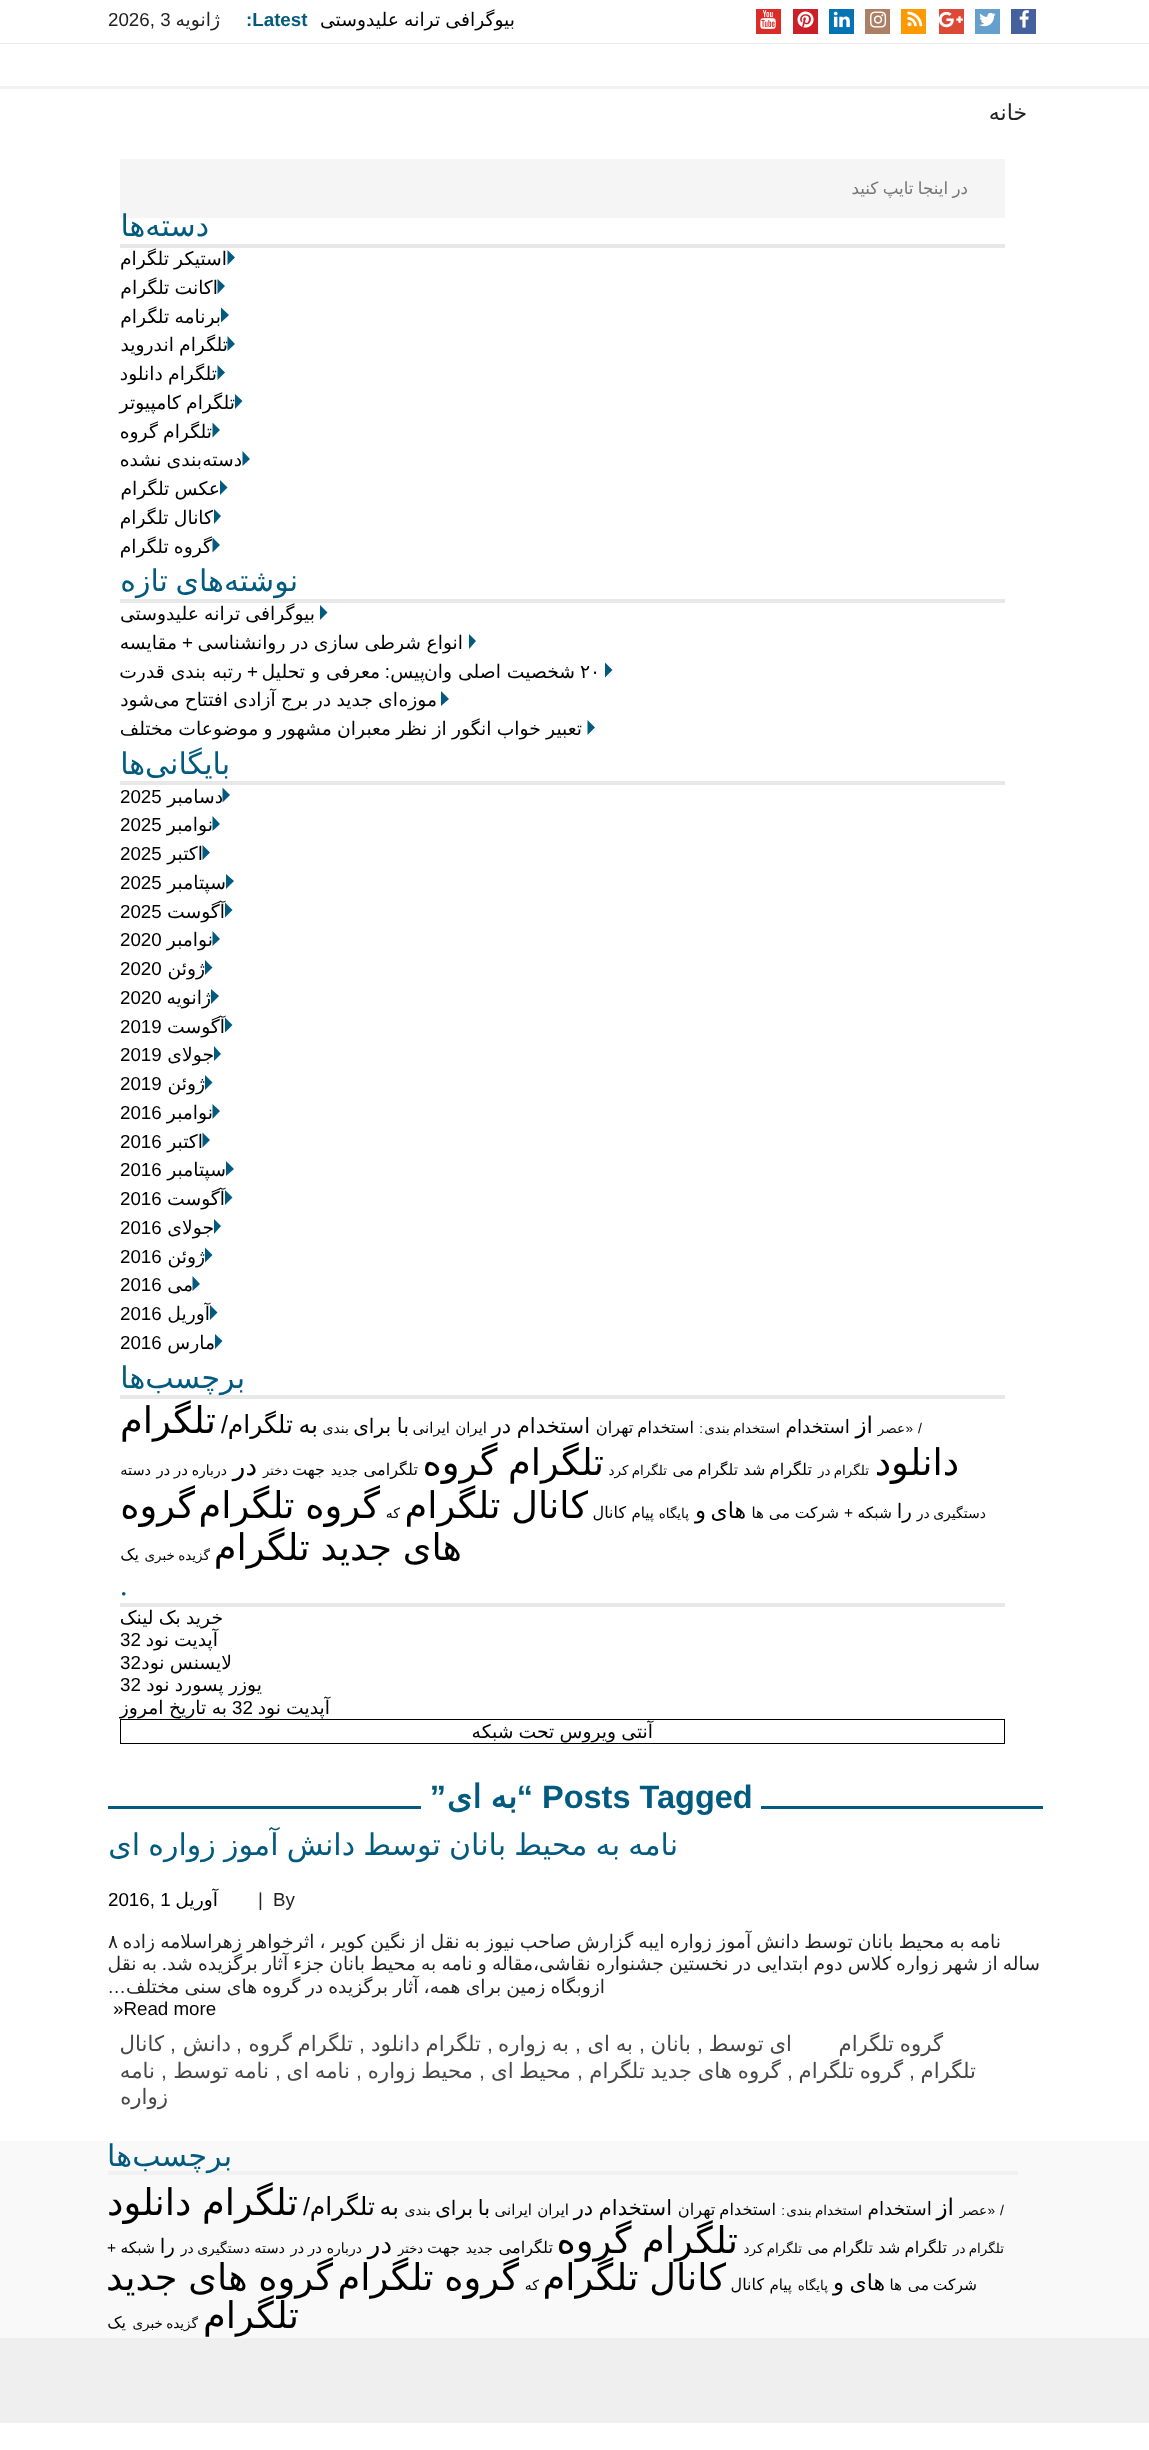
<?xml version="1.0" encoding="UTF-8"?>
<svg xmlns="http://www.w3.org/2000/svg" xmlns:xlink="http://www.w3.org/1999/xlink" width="1149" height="2450">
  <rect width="100%" height="100%" fill="#ffffff" />
  <rect x="1011" y="9" width="25" height="25" fill="#44619d" />
  <image x="1019" y="10" width="10" height="18" xlink:href="image1.png" />
  <rect x="975" y="9" width="25" height="25" fill="#659fcb" />
  <image x="979" y="12" width="17" height="15" xlink:href="image2.png" />
  <rect x="939" y="9" width="25" height="25" fill="#dc4937" />
  <image x="939" y="11" width="24" height="17" xlink:href="image3.png" />
  <rect x="901" y="9" width="25" height="25" fill="#ff9900" />
  <image x="907" y="11" width="16" height="16" xlink:href="image4.png" />
  <rect x="865" y="9" width="25" height="25" fill="#ac8065" />
  <image x="870" y="11" width="17" height="17" xlink:href="image5.png" />
  <rect x="829" y="9" width="25" height="25" fill="#0274b3" />
  <image x="833" y="11" width="17" height="17" xlink:href="image6.png" />
  <rect x="793" y="9" width="25" height="25" fill="#cb2027" />
  <image x="797" y="11" width="17" height="17" xlink:href="image7.png" />
  <rect x="756" y="9" width="25" height="25" fill="#dc2c28" />
  <image x="760" y="10" width="16" height="19" xlink:href="image8.png" />
  <rect y="43" width="1149" height="1" fill="#eaeaea" />
  <rect y="86" width="1149" height="3" fill="#f1f1f1" />
  <rect x="120" y="159" width="885" height="59" fill="#f5f5f5" />
  <rect x="120" y="244" width="885" height="4" fill="#e8e8e8" />
  <path d="M 227.5 265 v -15 l 7.5 7.5 z" fill="#025a7e" />
  <path d="M 217.5 294 v -15 l 7.5 7 z" fill="#025a7e" />
  <path d="M 221 322.5 v -15 l 8 7.5 z" fill="#025a7e" />
  <path d="M 227.5 351 v -15 l 7.5 8 z" fill="#025a7e" />
  <path d="M 217.5 380 v -15 l 7.5 7.5 z" fill="#025a7e" />
  <path d="M 235 409 v -15 l 7.5 7 z" fill="#025a7e" />
  <path d="M 212.5 437.5 v -15 l 7.5 7.5 z" fill="#025a7e" />
  <path d="M 242.5 466 v -15 l 7.5 8 z" fill="#025a7e" />
  <path d="M 220 495 v -15 l 7.5 7.5 z" fill="#025a7e" />
  <path d="M 214 524 v -15 l 7 7 z" fill="#025a7e" />
  <path d="M 212.5 552.5 v -15 l 7.5 7.5 z" fill="#025a7e" />
  <rect x="120" y="599" width="885" height="4" fill="#e8e8e8" />
  <path d="M 320 620 v -15 l 7.5 7.5 z" fill="#025a7e" />
  <path d="M 469 649 v -15 l 7 7 z" fill="#025a7e" />
  <path d="M 605 677.5 v -15 l 7.5 7.5 z" fill="#025a7e" />
  <path d="M 441 706 v -15 l 8 8 z" fill="#025a7e" />
  <path d="M 587.5 735 v -15 l 7.5 7.5 z" fill="#025a7e" />
  <rect x="120" y="781" width="885" height="4" fill="#e8e8e8" />
  <path d="M 222.5 802.5 v -15 l 7.5 7.5 z" fill="#025a7e" />
  <path d="M 212.5 831 v -15 l 7.5 8 z" fill="#025a7e" />
  <path d="M 202.5 860 v -15 l 7.5 7.5 z" fill="#025a7e" />
  <path d="M 226 889 v -15 l 8 7 z" fill="#025a7e" />
  <path d="M 225 917.5 v -15 l 7.5 7.5 z" fill="#025a7e" />
  <path d="M 212.5 946 v -15 l 7.5 8 z" fill="#025a7e" />
  <path d="M 205 975 v -15 l 7.5 7.5 z" fill="#025a7e" />
  <path d="M 211 1004 v -15 l 8 7 z" fill="#025a7e" />
  <path d="M 225 1032.5 v -15 l 7.5 7.5 z" fill="#025a7e" />
  <path d="M 214 1061 v -15 l 7 8 z" fill="#025a7e" />
  <path d="M 205 1090 v -15 l 7.5 7.5 z" fill="#025a7e" />
  <path d="M 212.5 1119 v -15 l 7.5 7 z" fill="#025a7e" />
  <path d="M 202.5 1147.5 v -15 l 7.5 7.5 z" fill="#025a7e" />
  <path d="M 226 1176 v -15 l 8 8 z" fill="#025a7e" />
  <path d="M 225 1205 v -15 l 7.5 7.5 z" fill="#025a7e" />
  <path d="M 214 1234 v -15 l 7 7 z" fill="#025a7e" />
  <path d="M 205 1262.5 v -15 l 7.5 7.5 z" fill="#025a7e" />
  <path d="M 192.5 1291 v -15 l 7.5 8 z" fill="#025a7e" />
  <path d="M 210 1320 v -15 l 7.5 7.5 z" fill="#025a7e" />
  <path d="M 215 1349 v -15 l 7.5 7 z" fill="#025a7e" />
  <rect x="120" y="1395" width="885" height="4" fill="#e8e8e8" />
  <rect x="120" y="1603" width="885" height="4" fill="#e8e8e8" />
  <rect x="120.5" y="1719.5" width="884" height="24" fill="none" stroke="#000000" />
  <rect x="108" y="1806" width="935" height="3" fill="#025a7e" />
  <rect x="421" y="1806" width="340" height="3" fill="#ffffff" />
  <rect y="2141" width="1149" height="197" fill="#f9f9f9" />
  <rect x="108" y="2171" width="910" height="4" fill="#f1f1f1" />
  <rect y="2338" width="1149" height="85" fill="#efefef" />
  <text x="515" y="26" word-spacing="-0.75" style="font-family: DejaVu Sans; font-size: 18.75px; direction: rtl; fill: #000000">بیوگرافی ترانه علیدوستی</text>
  <text x="246" y="26" style="font-family: Liberation Sans; font-size: 18.75px; font-weight: bold; fill: #025a7e">:Latest</text>
  <text x="220" y="26" style="font-family: DejaVu Sans; font-size: 18.75px; direction: rtl; fill: #232323">ژانویه</text>
  <text x="108" y="26" style="font-family: Liberation Sans; font-size: 18.75px; fill: #232323">2026, 3</text>
  <text x="1027" y="120" style="font-family: DejaVu Sans; font-size: 22px; direction: rtl; fill: #232323">خانه</text>
  <text x="968" y="194" word-spacing="-1" style="font-family: DejaVu Sans; font-size: 16.75px; direction: rtl; fill: #757575">در اینجا تایپ کنید</text>
  <text x="209" y="236" style="font-family: DejaVu Sans; font-size: 30px; direction: rtl; fill: #025a7e">دسته‌ها</text>
  <text x="227" y="265" word-spacing="-0.75" style="font-family: DejaVu Sans; font-size: 18.75px; direction: rtl; fill: #000000">استیکر تلگرام</text>
  <text x="218" y="294" word-spacing="-0.75" style="font-family: DejaVu Sans; font-size: 18.75px; direction: rtl; fill: #000000">اکانت تلگرام</text>
  <text x="221" y="323" word-spacing="-0.75" style="font-family: DejaVu Sans; font-size: 18.75px; direction: rtl; fill: #000000">برنامه تلگرام</text>
  <text x="228" y="351" word-spacing="-0.75" style="font-family: DejaVu Sans; font-size: 18.75px; direction: rtl; fill: #000000">تلگرام اندروید</text>
  <text x="217" y="380" word-spacing="-0.75" style="font-family: DejaVu Sans; font-size: 18.75px; direction: rtl; fill: #000000">تلگرام دانلود</text>
  <text x="235" y="409" word-spacing="-0.75" style="font-family: DejaVu Sans; font-size: 18.75px; direction: rtl; fill: #000000">تلگرام کامپیوتر</text>
  <text x="212" y="438" word-spacing="-0.75" style="font-family: DejaVu Sans; font-size: 18.75px; direction: rtl; fill: #000000">تلگرام گروه</text>
  <text x="242" y="466" style="font-family: DejaVu Sans; font-size: 18.75px; direction: rtl; fill: #000000">دسته</text>
  <text x="202" y="466" word-spacing="-0.75" style="font-family: DejaVu Sans; font-size: 18.75px; direction: rtl; fill: #000000">بندی نشده</text>
  <text x="220" y="495" word-spacing="-0.75" style="font-family: DejaVu Sans; font-size: 18.75px; direction: rtl; fill: #000000">عکس تلگرام</text>
  <text x="213" y="524" word-spacing="-0.75" style="font-family: DejaVu Sans; font-size: 18.75px; direction: rtl; fill: #000000">کانال تلگرام</text>
  <text x="212" y="553" word-spacing="-0.75" style="font-family: DejaVu Sans; font-size: 18.75px; direction: rtl; fill: #000000">گروه تلگرام</text>
  <text x="298" y="591" word-spacing="-2" style="font-family: DejaVu Sans; font-size: 30px; direction: rtl; fill: #025a7e">نوشته‌های تازه</text>
  <text x="315" y="620" word-spacing="-0.75" style="font-family: DejaVu Sans; font-size: 18.75px; direction: rtl; fill: #000000">بیوگرافی ترانه علیدوستی</text>
  <text x="463" y="649" word-spacing="-0.5" style="font-family: DejaVu Sans; font-size: 18.75px; direction: rtl; fill: #000000">انواع شرطی سازی در روانشناسی</text>
  <text x="193" y="649" style="font-family: Liberation Sans; font-size: 18.75px; direction: rtl; fill: #000000">+</text>
  <text x="177" y="649" style="font-family: DejaVu Sans; font-size: 18.75px; direction: rtl; fill: #000000">مقایسه</text>
  <text x="580" y="678" style="font-family: DejaVu Sans; font-size: 18.75px; fill: #000000">۲۰</text>
  <text x="575" y="678" style="font-family: DejaVu Sans; font-size: 18.75px; direction: rtl; fill: #000000">شخصیت اصلی وان</text>
  <text x="425" y="678" style="font-family: DejaVu Sans; font-size: 18.75px; direction: rtl; fill: #000000">پیس</text>
  <text x="390" y="678" style="font-family: Liberation Sans; font-size: 18.75px; direction: rtl; fill: #000000">:</text>
  <text x="380" y="678" style="font-family: DejaVu Sans; font-size: 18.75px; direction: rtl; fill: #000000">معرفی و تحلیل</text>
  <text x="258" y="678" style="font-family: Liberation Sans; font-size: 18.75px; direction: rtl; fill: #000000">+</text>
  <text x="242" y="678" style="font-family: DejaVu Sans; font-size: 18.75px; direction: rtl; fill: #000000">رتبه بندی قدرت</text>
  <text x="437" y="706" style="font-family: DejaVu Sans; font-size: 18.75px; direction: rtl; fill: #000000">موزه</text>
  <text x="398" y="706" word-spacing="-0.75" style="font-family: DejaVu Sans; font-size: 18.75px; direction: rtl; fill: #000000">ای جدید در برج آزادی افتتاح می</text>
  <text x="154" y="706" style="font-family: DejaVu Sans; font-size: 18.75px; direction: rtl; fill: #000000">شود</text>
  <text x="582" y="735" word-spacing="-0.75" style="font-family: DejaVu Sans; font-size: 18.75px; direction: rtl; fill: #000000">تعبیر خواب انگور از نظر معبران مشهور و موضوعات مختلف</text>
  <text x="230" y="774" style="font-family: DejaVu Sans; font-size: 30px; direction: rtl; fill: #025a7e">بایگانی‌ها</text>
  <text x="223" y="803" style="font-family: DejaVu Sans; font-size: 18.75px; direction: rtl; fill: #000000">دسامبر</text>
  <text x="120" y="803" style="font-family: Liberation Sans; font-size: 18.75px; fill: #000000">2025</text>
  <text x="213" y="831" style="font-family: DejaVu Sans; font-size: 18.75px; direction: rtl; fill: #000000">نوامبر</text>
  <text x="120" y="831" style="font-family: Liberation Sans; font-size: 18.75px; fill: #000000">2025</text>
  <text x="203" y="860" style="font-family: DejaVu Sans; font-size: 18.75px; direction: rtl; fill: #000000">اکتبر</text>
  <text x="120" y="860" style="font-family: Liberation Sans; font-size: 18.75px; fill: #000000">2025</text>
  <text x="226" y="889" style="font-family: DejaVu Sans; font-size: 18.75px; direction: rtl; fill: #000000">سپتامبر</text>
  <text x="120" y="889" style="font-family: Liberation Sans; font-size: 18.75px; fill: #000000">2025</text>
  <text x="225" y="918" style="font-family: DejaVu Sans; font-size: 18.75px; direction: rtl; fill: #000000">آگوست</text>
  <text x="120" y="918" style="font-family: Liberation Sans; font-size: 18.75px; fill: #000000">2025</text>
  <text x="213" y="946" style="font-family: DejaVu Sans; font-size: 18.75px; direction: rtl; fill: #000000">نوامبر</text>
  <text x="120" y="946" style="font-family: Liberation Sans; font-size: 18.75px; fill: #000000">2020</text>
  <text x="205" y="975" style="font-family: DejaVu Sans; font-size: 18.75px; direction: rtl; fill: #000000">ژوئن</text>
  <text x="120" y="975" style="font-family: Liberation Sans; font-size: 18.75px; fill: #000000">2020</text>
  <text x="211" y="1004" style="font-family: DejaVu Sans; font-size: 18.75px; direction: rtl; fill: #000000">ژانویه</text>
  <text x="120" y="1004" style="font-family: Liberation Sans; font-size: 18.75px; fill: #000000">2020</text>
  <text x="225" y="1033" style="font-family: DejaVu Sans; font-size: 18.75px; direction: rtl; fill: #000000">آگوست</text>
  <text x="120" y="1033" style="font-family: Liberation Sans; font-size: 18.75px; fill: #000000">2019</text>
  <text x="214" y="1061" style="font-family: DejaVu Sans; font-size: 18.75px; direction: rtl; fill: #000000">جولای</text>
  <text x="120" y="1061" style="font-family: Liberation Sans; font-size: 18.75px; fill: #000000">2019</text>
  <text x="205" y="1090" style="font-family: DejaVu Sans; font-size: 18.75px; direction: rtl; fill: #000000">ژوئن</text>
  <text x="120" y="1090" style="font-family: Liberation Sans; font-size: 18.75px; fill: #000000">2019</text>
  <text x="213" y="1119" style="font-family: DejaVu Sans; font-size: 18.75px; direction: rtl; fill: #000000">نوامبر</text>
  <text x="120" y="1119" style="font-family: Liberation Sans; font-size: 18.75px; fill: #000000">2016</text>
  <text x="203" y="1148" style="font-family: DejaVu Sans; font-size: 18.75px; direction: rtl; fill: #000000">اکتبر</text>
  <text x="120" y="1148" style="font-family: Liberation Sans; font-size: 18.75px; fill: #000000">2016</text>
  <text x="226" y="1176" style="font-family: DejaVu Sans; font-size: 18.75px; direction: rtl; fill: #000000">سپتامبر</text>
  <text x="120" y="1176" style="font-family: Liberation Sans; font-size: 18.75px; fill: #000000">2016</text>
  <text x="225" y="1205" style="font-family: DejaVu Sans; font-size: 18.75px; direction: rtl; fill: #000000">آگوست</text>
  <text x="120" y="1205" style="font-family: Liberation Sans; font-size: 18.75px; fill: #000000">2016</text>
  <text x="214" y="1234" style="font-family: DejaVu Sans; font-size: 18.75px; direction: rtl; fill: #000000">جولای</text>
  <text x="120" y="1234" style="font-family: Liberation Sans; font-size: 18.75px; fill: #000000">2016</text>
  <text x="205" y="1263" style="font-family: DejaVu Sans; font-size: 18.75px; direction: rtl; fill: #000000">ژوئن</text>
  <text x="120" y="1263" style="font-family: Liberation Sans; font-size: 18.75px; fill: #000000">2016</text>
  <text x="193" y="1291" style="font-family: DejaVu Sans; font-size: 18.75px; direction: rtl; fill: #000000">می</text>
  <text x="120" y="1291" style="font-family: Liberation Sans; font-size: 18.75px; fill: #000000">2016</text>
  <text x="210" y="1320" style="font-family: DejaVu Sans; font-size: 18.75px; direction: rtl; fill: #000000">آوریل</text>
  <text x="120" y="1320" style="font-family: Liberation Sans; font-size: 18.75px; fill: #000000">2016</text>
  <text x="215" y="1349" style="font-family: DejaVu Sans; font-size: 18.75px; direction: rtl; fill: #000000">مارس</text>
  <text x="120" y="1349" style="font-family: Liberation Sans; font-size: 18.75px; fill: #000000">2016</text>
  <text x="245" y="1388" style="font-family: DejaVu Sans; font-size: 30px; direction: rtl; fill: #025a7e">برچسب‌ها</text>
  <text x="918" y="1433" style="font-family: Liberation Sans; font-size: 14px; fill: #000000">/</text>
  <text x="913" y="1433" style="font-family: Liberation Sans; font-size: 13.5px; direction: rtl; fill: #000000">«</text>
  <text x="905" y="1433" style="font-family: DejaVu Sans; font-size: 13.5px; direction: rtl; fill: #000000">عصر</text>
  <text x="873" y="1433" style="font-family: DejaVu Sans; font-size: 23px; direction: rtl; fill: #000000">از</text>
  <text x="850" y="1433" style="font-family: DejaVu Sans; font-size: 18.5px; direction: rtl; fill: #000000">استخدام</text>
  <text x="780" y="1433" word-spacing="-1" style="font-family: DejaVu Sans; font-size: 13.5px; direction: rtl; fill: #000000">استخدام بندی</text>
  <text x="703" y="1433" style="font-family: Liberation Sans; font-size: 13.5px; direction: rtl; fill: #000000">:</text>
  <text x="694" y="1433" word-spacing="-1" style="font-family: DejaVu Sans; font-size: 16.25px; direction: rtl; fill: #000000">استخدام تهران</text>
  <text x="590" y="1433" word-spacing="-1" style="font-family: DejaVu Sans; font-size: 21px; direction: rtl; fill: #000000">استخدام در</text>
  <text x="487" y="1433" style="font-family: DejaVu Sans; font-size: 15px; direction: rtl; fill: #000000">ایران</text>
  <text x="450" y="1433" style="font-family: DejaVu Sans; font-size: 15px; direction: rtl; fill: #000000">ایرانی</text>
  <text x="409" y="1433" style="font-family: DejaVu Sans; font-size: 21px; direction: rtl; fill: #000000">با</text>
  <text x="391" y="1433" style="font-family: DejaVu Sans; font-size: 20px; direction: rtl; fill: #000000">برای</text>
  <text x="349" y="1433" style="font-family: DejaVu Sans; font-size: 14px; direction: rtl; fill: #000000">بندی</text>
  <text x="318" y="1433" style="font-family: DejaVu Sans; font-size: 24px; direction: rtl; fill: #000000">به</text>
  <text x="293" y="1433" style="font-family: DejaVu Sans; font-size: 25px; direction: rtl; fill: #000000">تلگرام</text>
  <text x="228" y="1433" style="font-family: Liberation Sans; font-size: 25px; direction: rtl; fill: #000000">/</text>
  <text x="216" y="1433" style="font-family: DejaVu Sans; font-size: 36.75px; direction: rtl; fill: #000000">تلگرام</text>
  <text x="959" y="1475" style="font-family: DejaVu Sans; font-size: 36.75px; direction: rtl; fill: #000000">دانلود</text>
  <text x="869" y="1475" word-spacing="-1" style="font-family: DejaVu Sans; font-size: 13.5px; direction: rtl; fill: #000000">تلگرام در</text>
  <text x="812" y="1475" word-spacing="-1" style="font-family: DejaVu Sans; font-size: 16.25px; direction: rtl; fill: #000000">تلگرام شد</text>
  <text x="738" y="1475" word-spacing="-1" style="font-family: DejaVu Sans; font-size: 15.5px; direction: rtl; fill: #000000">تلگرام می</text>
  <text x="667" y="1475" word-spacing="-1" style="font-family: DejaVu Sans; font-size: 13.5px; direction: rtl; fill: #000000">تلگرام کرد</text>
  <text x="604" y="1475" word-spacing="-1" style="font-family: DejaVu Sans; font-size: 36.75px; direction: rtl; fill: #000000">تلگرام گروه</text>
  <text x="418" y="1475" style="font-family: DejaVu Sans; font-size: 16.25px; direction: rtl; fill: #000000">تلگرامی</text>
  <text x="358" y="1475" style="font-family: DejaVu Sans; font-size: 14px; direction: rtl; fill: #000000">جدید</text>
  <text x="325" y="1475" style="font-family: DejaVu Sans; font-size: 16px; direction: rtl; fill: #000000">جهت</text>
  <text x="288" y="1475" style="font-family: DejaVu Sans; font-size: 13px; direction: rtl; fill: #000000">دختر</text>
  <text x="257" y="1475" style="font-family: DejaVu Sans; font-size: 26px; direction: rtl; fill: #000000">در</text>
  <text x="227" y="1475" style="font-family: DejaVu Sans; font-size: 14px; direction: rtl; fill: #000000">درباره</text>
  <text x="188" y="1475" word-spacing="-1" style="font-family: DejaVu Sans; font-size: 15px; direction: rtl; fill: #000000">در در</text>
  <text x="151" y="1475" style="font-family: DejaVu Sans; font-size: 14.5px; direction: rtl; fill: #000000">دسته</text>
  <text x="986" y="1518" word-spacing="-1" style="font-family: DejaVu Sans; font-size: 14px; direction: rtl; fill: #000000">دستگیری در</text>
  <text x="912" y="1518" style="font-family: DejaVu Sans; font-size: 20px; direction: rtl; fill: #000000">را</text>
  <text x="892" y="1518" style="font-family: DejaVu Sans; font-size: 15.5px; direction: rtl; fill: #000000">شبکه</text>
  <text x="853" y="1518" style="font-family: Liberation Sans; font-size: 15.5px; direction: rtl; fill: #000000">+</text>
  <text x="839" y="1518" style="font-family: DejaVu Sans; font-size: 15.5px; direction: rtl; fill: #000000">شرکت</text>
  <text x="790" y="1518" style="font-family: DejaVu Sans; font-size: 15.5px; direction: rtl; fill: #000000">می</text>
  <text x="764" y="1518" style="font-family: DejaVu Sans; font-size: 15px; direction: rtl; fill: #000000">ها</text>
  <text x="746" y="1518" style="font-family: DejaVu Sans; font-size: 22px; direction: rtl; fill: #000000">های</text>
  <text x="706" y="1518" style="font-family: DejaVu Sans; font-size: 23px; direction: rtl; fill: #000000">و</text>
  <text x="689" y="1518" style="font-family: DejaVu Sans; font-size: 13.5px; direction: rtl; fill: #000000">پایگاه</text>
  <text x="654" y="1518" style="font-family: DejaVu Sans; font-size: 15px; direction: rtl; fill: #000000">پیام</text>
  <text x="626" y="1518" style="font-family: DejaVu Sans; font-size: 16px; direction: rtl; fill: #000000">کانال</text>
  <text x="588" y="1518" word-spacing="-1" style="font-family: DejaVu Sans; font-size: 36.75px; direction: rtl; fill: #000000">کانال تلگرام</text>
  <text x="400" y="1518" style="font-family: DejaVu Sans; font-size: 14px; direction: rtl; fill: #000000">که</text>
  <text x="380" y="1518" word-spacing="-1" style="font-family: DejaVu Sans; font-size: 36.75px; direction: rtl; fill: #000000">گروه تلگرام</text>
  <text x="195" y="1518" style="font-family: DejaVu Sans; font-size: 36.75px; direction: rtl; fill: #000000">گروه</text>
  <text x="462" y="1560" word-spacing="-1" style="font-family: DejaVu Sans; font-size: 36.75px; direction: rtl; fill: #000000">های جدید تلگرام</text>
  <text x="210" y="1560" word-spacing="-1" style="font-family: DejaVu Sans; font-size: 13.5px; direction: rtl; fill: #000000">گزیده خبری</text>
  <text x="139" y="1560" style="font-family: DejaVu Sans; font-size: 16px; direction: rtl; fill: #000000">یک</text>
  <text x="120" y="1595" style="font-family: Liberation Serif; font-size: 30px; fill: #025a7e">.</text>
  <text x="223" y="1624" word-spacing="-0.75" style="font-family: DejaVu Sans; font-size: 18.75px; direction: rtl; fill: #000000">خرید بک لینک</text>
  <text x="218" y="1646" word-spacing="-0.75" style="font-family: DejaVu Sans; font-size: 18.75px; direction: rtl; fill: #000000">آپدیت نود</text>
  <text x="120" y="1646" style="font-family: Liberation Sans; font-size: 18.75px; fill: #000000">32</text>
  <text x="232" y="1669" word-spacing="-0.75" style="font-family: DejaVu Sans; font-size: 18.75px; direction: rtl; fill: #000000">لایسنس نود</text>
  <text x="120" y="1669" style="font-family: Liberation Sans; font-size: 18.75px; fill: #000000">32</text>
  <text x="262" y="1691" word-spacing="-0.75" style="font-family: DejaVu Sans; font-size: 18.75px; direction: rtl; fill: #000000">یوزر پسورد نود</text>
  <text x="120" y="1691" style="font-family: Liberation Sans; font-size: 18.75px; fill: #000000">32</text>
  <text x="330" y="1714" word-spacing="-0.75" style="font-family: DejaVu Sans; font-size: 18.75px; direction: rtl; fill: #000000">آپدیت نود</text>
  <text x="232" y="1714" style="font-family: Liberation Sans; font-size: 18.75px; fill: #000000">32</text>
  <text x="227" y="1714" word-spacing="-0.5" style="font-family: DejaVu Sans; font-size: 18.75px; direction: rtl; fill: #000000">به تاریخ امروز</text>
  <text x="653" y="1738" word-spacing="-0.75" style="font-family: DejaVu Sans; font-size: 18.75px; direction: rtl; fill: #000000">آنتی ویروس تحت شبکه</text>
  <text x="542" y="1808" style="font-family: Liberation Sans; font-size: 32.5px; font-weight: bold; fill: #025a7e">Posts Tagged</text>
  <text x="533" y="1808" style="font-family: Liberation Sans; font-size: 32.5px; font-weight: bold; direction: rtl; fill: #025a7e">“</text>
  <text x="517" y="1808" word-spacing="-1" style="font-family: DejaVu Sans; font-size: 32.5px; font-weight: bold; direction: rtl; fill: #025a7e">به ای</text>
  <text x="446" y="1808" style="font-family: Liberation Sans; font-size: 32.5px; font-weight: bold; direction: rtl; fill: #025a7e">”</text>
  <text x="678" y="1855" word-spacing="-1.25" style="font-family: DejaVu Sans; font-size: 30px; direction: rtl; fill: #025a7e">نامه به محیط بانان توسط دانش آموز زواره ای</text>
  <text x="273" y="1906" style="font-family: Liberation Sans; font-size: 18.75px; fill: #232323">By</text>
  <text x="258" y="1906" style="font-family: Liberation Sans; font-size: 18.75px; fill: #232323">|</text>
  <text x="218" y="1906" style="font-family: DejaVu Sans; font-size: 18.75px; direction: rtl; fill: #000000">آوریل</text>
  <text x="108" y="1906" style="font-family: Liberation Sans; font-size: 18.75px; fill: #000000">2016, 1</text>
  <text x="1001" y="1948" word-spacing="-0.75" style="font-family: DejaVu Sans; font-size: 18.75px; direction: rtl; fill: #232323">نامه به محیط بانان توسط دانش آموز زواره ایبه گزارش صاحب نیوز به نقل از نگین کویر ، اثرخواهر زهراسلامه زاده</text>
  <text x="108" y="1948" style="font-family: DejaVu Sans; font-size: 18.75px; fill: #232323">۸</text>
  <text x="1040" y="1970" word-spacing="-0.75" style="font-family: DejaVu Sans; font-size: 18.75px; direction: rtl; fill: #232323">ساله از شهر زواره کلاس دوم ابتدایی در نخستین جشنواره نقاشی،مقاله و نامه به محیط بانان جزء آثار برگزیده شد</text>
  <text x="167" y="1970" style="font-family: Liberation Sans; font-size: 18.75px; direction: rtl; fill: #232323">.</text>
  <text x="157" y="1970" word-spacing="-0.75" style="font-family: DejaVu Sans; font-size: 18.75px; direction: rtl; fill: #232323">به نقل</text>
  <text x="605" y="1993" word-spacing="-0.75" style="font-family: DejaVu Sans; font-size: 18.75px; direction: rtl; fill: #232323">ازوبگاه زمین برای همه، آثار برگزیده در گروه های سنی مختلف</text>
  <text x="126" y="1993" style="font-family: Liberation Sans; font-size: 18.75px; direction: rtl; fill: #232323">…</text>
  <text x="113" y="2015" style="font-family: Liberation Sans; font-size: 18.75px; fill: #000000">»Read more</text>
  <text x="943" y="2051" word-spacing="-1" style="font-family: DejaVu Sans; font-size: 21.25px; direction: rtl; fill: #484848">گروه تلگرام</text>
  <text x="792" y="2051" word-spacing="-1" style="font-family: DejaVu Sans; font-size: 21.25px; direction: rtl; fill: #484848">ای توسط</text>
  <text x="697" y="2051" style="font-family: Liberation Sans; font-size: 21.25px; fill: #484848">,</text>
  <text x="691" y="2051" style="font-family: DejaVu Sans; font-size: 21.25px; direction: rtl; fill: #484848">بانان</text>
  <text x="639" y="2051" style="font-family: Liberation Sans; font-size: 21.25px; fill: #484848">,</text>
  <text x="633" y="2051" word-spacing="-1" style="font-family: DejaVu Sans; font-size: 21.25px; direction: rtl; fill: #484848">به ای</text>
  <text x="575" y="2051" style="font-family: Liberation Sans; font-size: 21.25px; fill: #484848">,</text>
  <text x="569" y="2051" word-spacing="-1" style="font-family: DejaVu Sans; font-size: 21.25px; direction: rtl; fill: #484848">به زواره</text>
  <text x="487" y="2051" style="font-family: Liberation Sans; font-size: 21.25px; fill: #484848">,</text>
  <text x="481" y="2051" word-spacing="-1" style="font-family: DejaVu Sans; font-size: 21.25px; direction: rtl; fill: #484848">تلگرام دانلود</text>
  <text x="359" y="2051" style="font-family: Liberation Sans; font-size: 21.25px; fill: #484848">,</text>
  <text x="353" y="2051" word-spacing="-1" style="font-family: DejaVu Sans; font-size: 21.25px; direction: rtl; fill: #484848">تلگرام گروه</text>
  <text x="236" y="2051" style="font-family: Liberation Sans; font-size: 21.25px; fill: #484848">,</text>
  <text x="231" y="2051" style="font-family: DejaVu Sans; font-size: 21.25px; direction: rtl; fill: #484848">دانش</text>
  <text x="170" y="2051" style="font-family: Liberation Sans; font-size: 21.25px; fill: #484848">,</text>
  <text x="164" y="2051" style="font-family: DejaVu Sans; font-size: 21.25px; direction: rtl; fill: #484848">کانال</text>
  <text x="976" y="2078" style="font-family: DejaVu Sans; font-size: 21.25px; direction: rtl; fill: #484848">تلگرام</text>
  <text x="909" y="2078" style="font-family: Liberation Sans; font-size: 21.25px; fill: #484848">,</text>
  <text x="903" y="2078" word-spacing="-1" style="font-family: DejaVu Sans; font-size: 21.25px; direction: rtl; fill: #484848">گروه تلگرام</text>
  <text x="787" y="2078" style="font-family: Liberation Sans; font-size: 21.25px; fill: #484848">,</text>
  <text x="781" y="2078" word-spacing="-1" style="font-family: DejaVu Sans; font-size: 21.25px; direction: rtl; fill: #484848">گروه های جدید تلگرام</text>
  <text x="577" y="2078" style="font-family: Liberation Sans; font-size: 21.25px; fill: #484848">,</text>
  <text x="571" y="2078" word-spacing="-1" style="font-family: DejaVu Sans; font-size: 21.25px; direction: rtl; fill: #484848">محیط ای</text>
  <text x="479" y="2078" style="font-family: Liberation Sans; font-size: 21.25px; fill: #484848">,</text>
  <text x="473" y="2078" word-spacing="-1" style="font-family: DejaVu Sans; font-size: 21.25px; direction: rtl; fill: #484848">محیط زواره</text>
  <text x="356" y="2078" style="font-family: Liberation Sans; font-size: 21.25px; fill: #484848">,</text>
  <text x="350" y="2078" word-spacing="-1" style="font-family: DejaVu Sans; font-size: 21.25px; direction: rtl; fill: #484848">نامه ای</text>
  <text x="275" y="2078" style="font-family: Liberation Sans; font-size: 21.25px; fill: #484848">,</text>
  <text x="269" y="2078" word-spacing="-1" style="font-family: DejaVu Sans; font-size: 21.25px; direction: rtl; fill: #484848">نامه توسط</text>
  <text x="161" y="2078" style="font-family: Liberation Sans; font-size: 21.25px; fill: #484848">,</text>
  <text x="155" y="2078" style="font-family: DejaVu Sans; font-size: 21.25px; direction: rtl; fill: #484848">نامه</text>
  <text x="168" y="2104" style="font-family: DejaVu Sans; font-size: 21.25px; direction: rtl; fill: #484848">زواره</text>
  <text x="232" y="2166" style="font-family: DejaVu Sans; font-size: 30px; direction: rtl; fill: #025a7e">برچسب</text>
  <text x="132" y="2166" style="font-family: DejaVu Sans; font-size: 30px; direction: rtl; fill: #025a7e">ها</text>
  <text x="1000" y="2215" style="font-family: Liberation Sans; font-size: 14px; fill: #000000">/</text>
  <text x="995" y="2215" style="font-family: Liberation Sans; font-size: 13.5px; direction: rtl; fill: #000000">«</text>
  <text x="987" y="2215" style="font-family: DejaVu Sans; font-size: 13.5px; direction: rtl; fill: #000000">عصر</text>
  <text x="954" y="2215" style="font-family: DejaVu Sans; font-size: 23px; direction: rtl; fill: #000000">از</text>
  <text x="932" y="2215" style="font-family: DejaVu Sans; font-size: 18.5px; direction: rtl; fill: #000000">استخدام</text>
  <text x="862" y="2215" word-spacing="-1" style="font-family: DejaVu Sans; font-size: 13.5px; direction: rtl; fill: #000000">استخدام بندی</text>
  <text x="785" y="2215" style="font-family: Liberation Sans; font-size: 13.5px; direction: rtl; fill: #000000">:</text>
  <text x="776" y="2215" word-spacing="-1" style="font-family: DejaVu Sans; font-size: 16.25px; direction: rtl; fill: #000000">استخدام تهران</text>
  <text x="672" y="2215" word-spacing="-1" style="font-family: DejaVu Sans; font-size: 21px; direction: rtl; fill: #000000">استخدام در</text>
  <text x="569" y="2215" style="font-family: DejaVu Sans; font-size: 15px; direction: rtl; fill: #000000">ایران</text>
  <text x="532" y="2215" style="font-family: DejaVu Sans; font-size: 15px; direction: rtl; fill: #000000">ایرانی</text>
  <text x="490" y="2215" style="font-family: DejaVu Sans; font-size: 21px; direction: rtl; fill: #000000">با</text>
  <text x="473" y="2215" style="font-family: DejaVu Sans; font-size: 20px; direction: rtl; fill: #000000">برای</text>
  <text x="431" y="2215" style="font-family: DejaVu Sans; font-size: 14px; direction: rtl; fill: #000000">بندی</text>
  <text x="399" y="2215" style="font-family: DejaVu Sans; font-size: 24px; direction: rtl; fill: #000000">به</text>
  <text x="375" y="2215" style="font-family: DejaVu Sans; font-size: 25px; direction: rtl; fill: #000000">تلگرام</text>
  <text x="310" y="2215" style="font-family: Liberation Sans; font-size: 25px; direction: rtl; fill: #000000">/</text>
  <text x="298" y="2215" word-spacing="-1" style="font-family: DejaVu Sans; font-size: 36.75px; direction: rtl; fill: #000000">تلگرام دانلود</text>
  <text x="1004" y="2253" word-spacing="-1" style="font-family: DejaVu Sans; font-size: 13.5px; direction: rtl; fill: #000000">تلگرام در</text>
  <text x="947" y="2253" word-spacing="-1" style="font-family: DejaVu Sans; font-size: 16.25px; direction: rtl; fill: #000000">تلگرام شد</text>
  <text x="873" y="2253" word-spacing="-1" style="font-family: DejaVu Sans; font-size: 15.5px; direction: rtl; fill: #000000">تلگرام می</text>
  <text x="802" y="2253" word-spacing="-1" style="font-family: DejaVu Sans; font-size: 13.5px; direction: rtl; fill: #000000">تلگرام کرد</text>
  <text x="738" y="2253" word-spacing="-1" style="font-family: DejaVu Sans; font-size: 36.75px; direction: rtl; fill: #000000">تلگرام گروه</text>
  <text x="553" y="2253" style="font-family: DejaVu Sans; font-size: 16.25px; direction: rtl; fill: #000000">تلگرامی</text>
  <text x="493" y="2253" style="font-family: DejaVu Sans; font-size: 14px; direction: rtl; fill: #000000">جدید</text>
  <text x="460" y="2253" style="font-family: DejaVu Sans; font-size: 16px; direction: rtl; fill: #000000">جهت</text>
  <text x="423" y="2253" style="font-family: DejaVu Sans; font-size: 13px; direction: rtl; fill: #000000">دختر</text>
  <text x="392" y="2253" style="font-family: DejaVu Sans; font-size: 26px; direction: rtl; fill: #000000">در</text>
  <text x="362" y="2253" style="font-family: DejaVu Sans; font-size: 14px; direction: rtl; fill: #000000">درباره</text>
  <text x="322" y="2253" word-spacing="-1" style="font-family: DejaVu Sans; font-size: 15px; direction: rtl; fill: #000000">در در</text>
  <text x="285" y="2253" style="font-family: DejaVu Sans; font-size: 14.5px; direction: rtl; fill: #000000">دسته</text>
  <text x="250" y="2253" word-spacing="-1" style="font-family: DejaVu Sans; font-size: 14px; direction: rtl; fill: #000000">دستگیری در</text>
  <text x="175" y="2253" style="font-family: DejaVu Sans; font-size: 20px; direction: rtl; fill: #000000">را</text>
  <text x="155" y="2253" style="font-family: DejaVu Sans; font-size: 15.5px; direction: rtl; fill: #000000">شبکه</text>
  <text x="116" y="2253" style="font-family: Liberation Sans; font-size: 15.5px; direction: rtl; fill: #000000">+</text>
  <text x="977" y="2290" style="font-family: DejaVu Sans; font-size: 15.5px; direction: rtl; fill: #000000">شرکت</text>
  <text x="929" y="2290" style="font-family: DejaVu Sans; font-size: 15.5px; direction: rtl; fill: #000000">می</text>
  <text x="902" y="2290" style="font-family: DejaVu Sans; font-size: 15px; direction: rtl; fill: #000000">ها</text>
  <text x="885" y="2290" style="font-family: DejaVu Sans; font-size: 22px; direction: rtl; fill: #000000">های</text>
  <text x="844" y="2290" style="font-family: DejaVu Sans; font-size: 23px; direction: rtl; fill: #000000">و</text>
  <text x="828" y="2290" style="font-family: DejaVu Sans; font-size: 13.5px; direction: rtl; fill: #000000">پایگاه</text>
  <text x="792" y="2290" style="font-family: DejaVu Sans; font-size: 15px; direction: rtl; fill: #000000">پیام</text>
  <text x="764" y="2290" style="font-family: DejaVu Sans; font-size: 16px; direction: rtl; fill: #000000">کانال</text>
  <text x="726" y="2290" word-spacing="-1" style="font-family: DejaVu Sans; font-size: 36.75px; direction: rtl; fill: #000000">کانال تلگرام</text>
  <text x="539" y="2290" style="font-family: DejaVu Sans; font-size: 14px; direction: rtl; fill: #000000">که</text>
  <text x="519" y="2290" word-spacing="-1" style="font-family: DejaVu Sans; font-size: 36.75px; direction: rtl; fill: #000000">گروه تلگرام</text>
  <text x="333" y="2290" word-spacing="-1" style="font-family: DejaVu Sans; font-size: 36.75px; direction: rtl; fill: #000000">گروه های جدید</text>
  <text x="299" y="2328" style="font-family: DejaVu Sans; font-size: 36.75px; direction: rtl; fill: #000000">تلگرام</text>
  <text x="198" y="2328" word-spacing="-1" style="font-family: DejaVu Sans; font-size: 13.5px; direction: rtl; fill: #000000">گزیده خبری</text>
  <text x="126" y="2328" style="font-family: DejaVu Sans; font-size: 16px; direction: rtl; fill: #000000">یک</text>
</svg>
